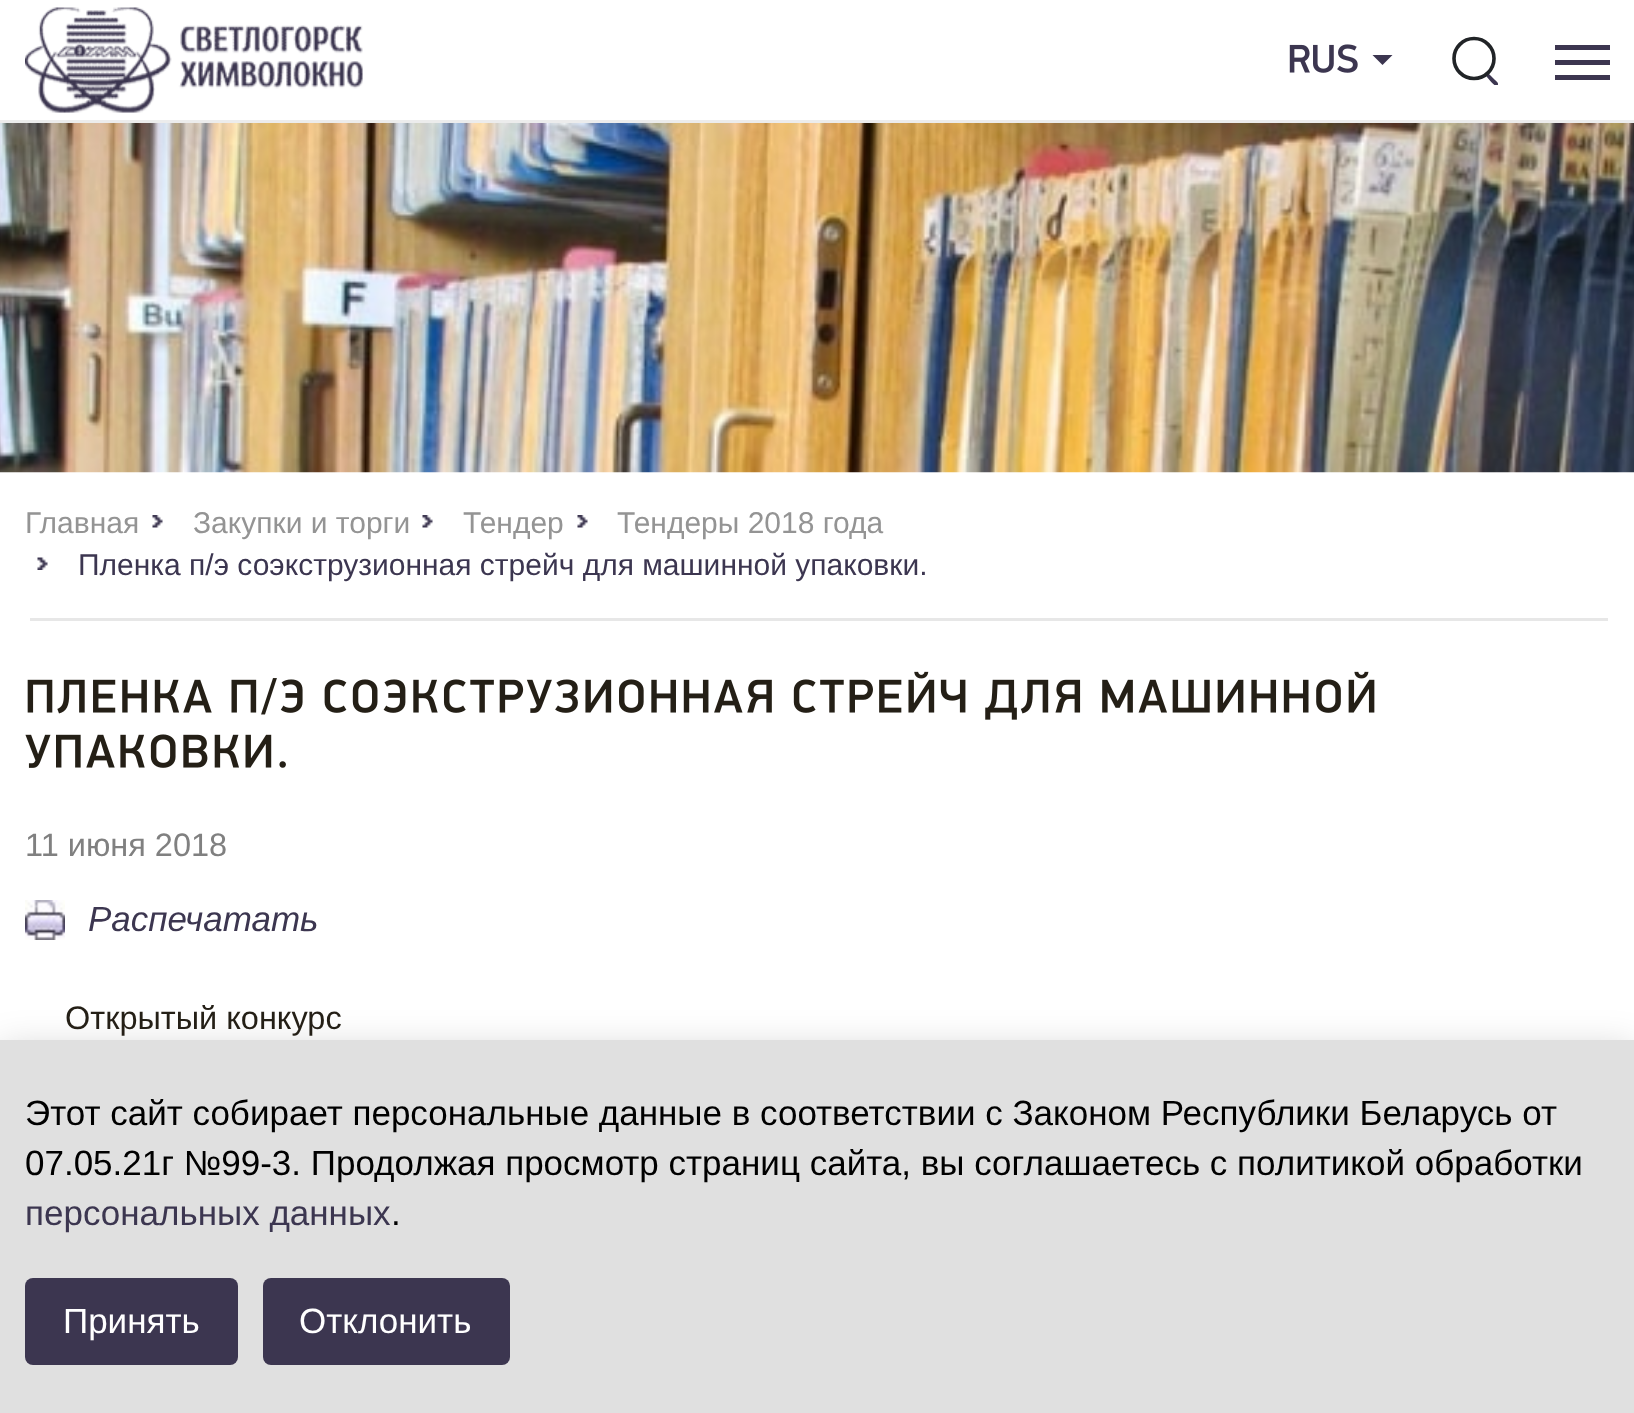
<?xml version="1.0" encoding="UTF-8"?>
<svg xmlns="http://www.w3.org/2000/svg" xmlns:xlink="http://www.w3.org/1999/xlink" width="1634" height="1413">
  <defs>
    <clipPath id="clip1"><rect x="1450" y="35" width="50" height="50" /></clipPath>
  </defs>
  <rect width="100%" height="100%" fill="#ffffff" />
  <rect y="120" width="1634" height="3" fill="#ececec" />
  <image x="25" y="7" width="338" height="106" xlink:href="image1.png" />
  <image x="1289" y="44" width="69" height="29" xlink:href="image2.png" />
  <path d="M 1372.5 55 h 20 l -10 10 z" fill="#3c3650" />
  <g clip-path="url(#clip1)">
    <path d="M 1489.5 74.5 l 5.5 5.5 c 1 1 3.5 2.5 3 4.5 c -1 5 -8 -4 -8.5 -4.5 l -3 -3.5 c -1 -2 1.5 -3 3 -2 z" fill="#3c3650" />
  </g>
  <circle cx="1474" cy="58.5" r="20" fill="none" stroke="#212427" stroke-width="3.6" />
  <rect x="1555" y="60" width="55" height="5" fill="#3c3650" />
  <rect x="1555" y="45" width="55" height="5" fill="#3c3650" />
  <rect x="1555" y="75" width="55" height="5" fill="#3c3650" />
  <image x="0" y="123" width="1634" height="350" xlink:href="image3.png" />
  <rect x="30" y="618" width="1578" height="3" fill="#e7e7e7" />
  <image x="152" y="515" width="11" height="13" xlink:href="image4.png" />
  <image x="422" y="515" width="11" height="13" xlink:href="image4.png" />
  <image x="577" y="515" width="11" height="13" xlink:href="image5.png" />
  <image x="37" y="557" width="11" height="13" xlink:href="image6.png" />
  <image x="27" y="671" width="1348" height="49" xlink:href="image7.png" />
  <image x="25" y="734" width="261" height="34" xlink:href="image8.png" />
  <image x="25" y="900" width="40" height="40" xlink:href="image9.png" />
  <rect y="1050" width="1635" height="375" fill="#000000" fill-opacity="0.2" filter="blur(19px)" />
  <rect y="1040" width="1634" height="373" fill="#e0e0e0" />
  <rect x="25" y="1278" width="213" height="87" rx="8" fill="#3c3650" />
  <rect x="263" y="1278" width="247" height="87" rx="8" fill="#3c3650" />
  <text x="25" y="533" style="font-family: Liberation Sans; font-size: 30px; fill: #949494">Главная</text>
  <text x="193" y="533" style="font-family: Liberation Sans; font-size: 30px; fill: #949494">Закупки и торги</text>
  <text x="463" y="533" style="font-family: Liberation Sans; font-size: 30px; fill: #949494">Тендер</text>
  <text x="617" y="533" style="font-family: Liberation Sans; font-size: 30px; fill: #949494">Тендеры 2018 года</text>
  <text x="78" y="575" style="font-family: Liberation Sans; font-size: 30px; fill: #3c3650">Пленка п/э соэкструзионная стрейч для машинной упаковки.</text>
  <text x="25" y="856" style="font-family: Liberation Sans; font-size: 32.5px; fill: #808080">11 июня 2018</text>
  <text x="88" y="931" style="font-family: Liberation Sans; font-size: 35px; font-style: italic; fill: #3c3650">Распечатать</text>
  <text x="65" y="1029" style="font-family: Liberation Sans; font-size: 32.5px; fill: #241f16">Открытый конкурс</text>
  <text x="25" y="1125" style="font-family: Liberation Sans; font-size: 35px; fill: #000000">Этот сайт собирает персональные данные в соответствии с Законом Республики Беларусь от</text>
  <text x="25" y="1175" style="font-family: Liberation Sans; font-size: 35px; fill: #000000">07.05.21г №99-3. Продолжая просмотр страниц сайта, вы соглашаетесь с политикой обработки</text>
  <text x="25" y="1225" style="font-family: Liberation Sans; font-size: 35px; fill: #3c3650">персональных данных</text>
  <text x="391" y="1225" style="font-family: Liberation Sans; font-size: 35px; fill: #000000">.</text>
  <text x="63" y="1333" style="font-family: Liberation Sans; font-size: 35px; fill: #ffffff">Принять</text>
  <text x="299" y="1333" style="font-family: Liberation Sans; font-size: 35px; fill: #ffffff">Отклонить</text>
</svg>
